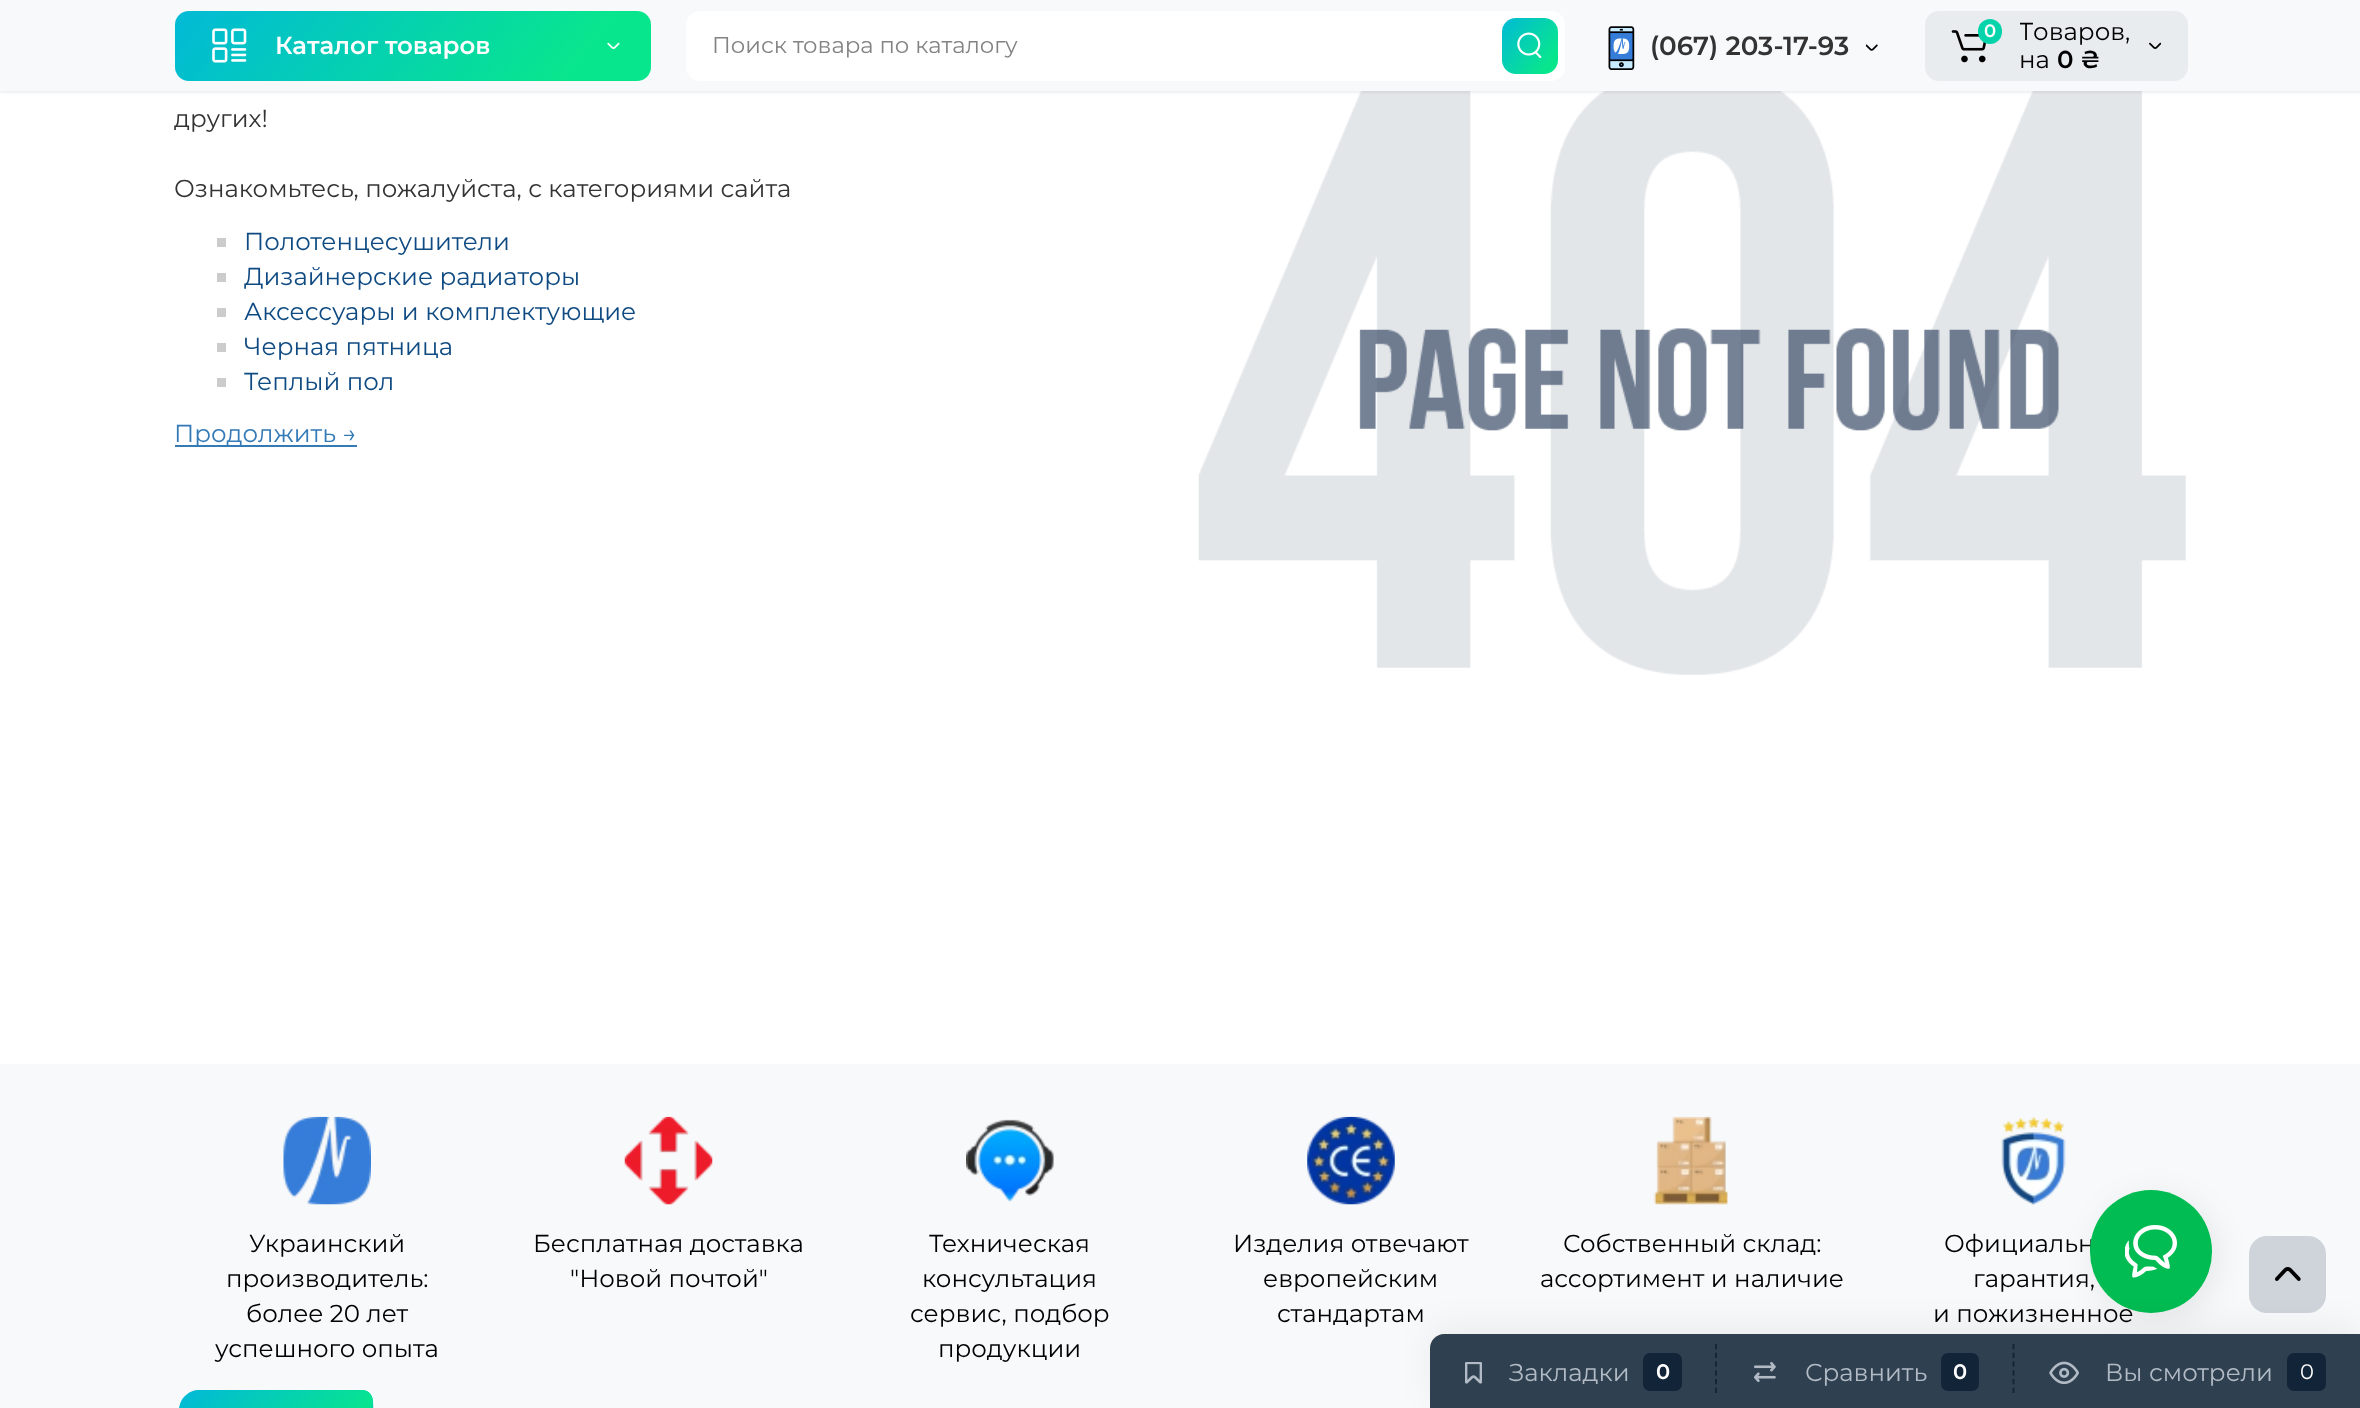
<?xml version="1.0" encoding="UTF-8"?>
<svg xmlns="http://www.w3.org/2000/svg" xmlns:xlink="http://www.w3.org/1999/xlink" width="2360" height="1408">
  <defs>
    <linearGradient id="g1" gradientUnits="userSpaceOnUse" x1="195" y1="-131" x2="573" y2="176"><stop offset="0" stop-color="#00b0e6" /><stop offset="0.86" stop-color="#08e68d" /></linearGradient>
    <linearGradient id="g2" gradientUnits="userSpaceOnUse" x1="1488" y1="12" x2="1560" y2="70"><stop offset="0" stop-color="#00b0e6" /><stop offset="0.86" stop-color="#08e68d" /></linearGradient>
    <linearGradient id="g3" gradientUnits="userSpaceOnUse" x1="190" y1="1343" x2="330" y2="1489"><stop offset="0" stop-color="#00b0e6" /><stop offset="0.86" stop-color="#08e68d" /></linearGradient>
    <clipPath id="clip1"><rect x="2020" y="18" width="112" height="28" /></clipPath>
  </defs>
  <rect width="100%" height="100%" fill="#ffffff" />
  <image x="1198" y="91" width="988" height="584" xlink:href="image8.png" />
  <rect y="2" width="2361" height="91" fill="#000000" fill-opacity="0.06" filter="blur(1px)" />
  <rect width="2360" height="91" fill="#f8f9fa" />
  <rect x="175" y="11" width="476" height="70" rx="14" fill="url(#g1)" />
  <image x="212" y="28" width="35" height="35" xlink:href="image1.png" />
  <image x="607" y="42" width="13" height="7" xlink:href="image2.png" />
  <path d="M 700 11 h 803 v 70 h -803 c -7.5 0 -14 -6.5 -14 -14 v -42 c 0 -7.5 6.5 -14 14 -14 z" fill="#ffffff" />
  <path d="M 1503 11 h 48 c 7.5 0 14 6.5 14 14 v 42 c 0 7.5 -6.5 14 -14 14 h -48 z" fill="#ffffff" />
  <rect x="1502" y="18" width="56" height="56" rx="14" fill="url(#g2)" />
  <image x="1517" y="32" width="25" height="27" xlink:href="image3.png" />
  <image x="1608" y="26" width="27" height="44" xlink:href="image4.png" />
  <image x="1866" y="44" width="12" height="7" xlink:href="image5.png" />
  <rect x="1925" y="11" width="263" height="70" rx="14" fill="#e9ecef" />
  <image x="1951" y="30" width="35" height="33" xlink:href="image6.png" />
  <rect x="1978" y="19" width="24" height="25" rx="12" fill="#05d4ab" />
  <image x="2149" y="42" width="12" height="7" xlink:href="image7.png" />
  <rect x="217" y="238" width="9" height="9" fill="#cccccc" />
  <rect x="217" y="273" width="9" height="9" fill="#cccccc" />
  <rect x="217" y="308" width="9" height="9" fill="#cccccc" />
  <rect x="217" y="343" width="9" height="9" fill="#cccccc" />
  <rect x="217" y="378" width="9" height="9" fill="#cccccc" />
  <rect x="175" y="445" width="182" height="2" fill="#337ab7" />
  <rect y="1064" width="2360" height="344" fill="#f8f9fa" />
  <image x="283" y="1116" width="88" height="89" xlink:href="image9.png" />
  <image x="624" y="1116" width="89" height="89" xlink:href="image10.png" />
  <image x="966" y="1119" width="88" height="83" xlink:href="image11.png" />
  <image x="1307" y="1116" width="88" height="89" xlink:href="image12.png" />
  <image x="1653" y="1116" width="75" height="89" xlink:href="image13.png" />
  <image x="2001" y="1117" width="65" height="88" xlink:href="image14.png" />
  <path d="M 334 1390 h 28 c 6 0 11 5 11 11 l 1 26 h -28 c -6 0 -10 -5 -11 -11 z" fill="#05d4ab" />
  <path d="M 198 1390 h 164 c 8 0 12 7 10 14 l -12 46 c -2 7 -10 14 -18 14 h -164 c -7 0 -12 -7 -10 -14 l 12 -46 c 2 -7 10 -14 18 -14 z" fill="url(#g3)" />
  <rect x="2249" y="1236" width="77" height="77" rx="18" fill="#ced4da" />
  <rect x="2095" y="1197" width="122" height="123" rx="61" fill="#000000" fill-opacity="0.08" filter="blur(16px)" />
  <image x="2275" y="1267" width="26" height="14" xlink:href="image16.png" />
  <text x="275" y="54" style="font-family: Montserrat; font-size: 24.5px; font-weight: 600; fill: #ffffff">Каталог товаров</text>
  <text x="712" y="53" style="font-family: Montserrat; font-size: 22.75px; fill: #838383">Поиск товара по каталогу</text>
  <text x="1650" y="55" style="font-family: Montserrat; font-size: 26.25px; font-weight: 600; fill: #333333">(067) 203-17-93</text>
  <text x="1984" y="37" style="font-family: Montserrat; font-size: 18px; font-weight: 600; fill: #ffffff">0</text>
  <g clip-path="url(#clip1)">
    <text x="2019" y="40" style="font-family: Montserrat; font-size: 24.5px; fill: #000000">Tоваров,</text>
  </g>
  <text x="2019" y="68" style="font-family: Montserrat; font-size: 24.5px; fill: #000000">на</text>
  <text x="2057" y="68" style="font-family: Montserrat; font-size: 24.5px; font-weight: 600; fill: #000000">0 ₴</text>
  <text x="174" y="127" style="font-family: Montserrat; font-size: 24.5px; fill: #333333">других!</text>
  <text x="174" y="197" style="font-family: Montserrat; font-size: 24.5px; fill: #333333">Ознакомьтесь, пожалуйста, с категориями сайта</text>
  <text x="244" y="250" style="font-family: Montserrat; font-size: 24.5px; fill: #0f4b82">Полотенцесушители</text>
  <text x="244" y="285" style="font-family: Montserrat; font-size: 24.5px; fill: #0f4b82">Дизайнерские радиаторы</text>
  <text x="244" y="320" style="font-family: Montserrat; font-size: 24.5px; fill: #0f4b82">Аксессуары и комплектующие</text>
  <text x="244" y="355" style="font-family: Montserrat; font-size: 24.5px; fill: #0f4b82">Черная пятница</text>
  <text x="244" y="390" style="font-family: Montserrat; font-size: 24.5px; fill: #0f4b82">Теплый пол</text>
  <text x="174" y="442" style="font-family: Montserrat; font-size: 24.5px; fill: #337ab7">Продолжить →</text>
  <text x="249" y="1252" style="font-family: Montserrat; font-size: 24.5px; fill: #000000">Украинский</text>
  <text x="226" y="1287" style="font-family: Montserrat; font-size: 24.5px; fill: #000000">производитель:</text>
  <text x="246" y="1322" style="font-family: Montserrat; font-size: 24.5px; fill: #000000">более 20 лет</text>
  <text x="215" y="1357" style="font-family: Montserrat; font-size: 24.5px; fill: #000000">успешного опыта</text>
  <text x="533" y="1252" style="font-family: Montserrat; font-size: 24.5px; fill: #000000">Бесплатная доставка</text>
  <text x="570" y="1287" style="font-family: Montserrat; font-size: 24.5px; fill: #000000">"Новой почтой"</text>
  <text x="929" y="1252" style="font-family: Montserrat; font-size: 24.5px; fill: #000000">Техническая</text>
  <text x="922" y="1287" style="font-family: Montserrat; font-size: 24.5px; fill: #000000">консультация</text>
  <text x="910" y="1322" style="font-family: Montserrat; font-size: 24.5px; fill: #000000">сервис, подбор</text>
  <text x="938" y="1357" style="font-family: Montserrat; font-size: 24.5px; fill: #000000">продукции</text>
  <text x="1233" y="1252" style="font-family: Montserrat; font-size: 24.5px; fill: #000000">Изделия отвечают</text>
  <text x="1263" y="1287" style="font-family: Montserrat; font-size: 24.5px; fill: #000000">европейским</text>
  <text x="1277" y="1322" style="font-family: Montserrat; font-size: 24.5px; fill: #000000">стандартам</text>
  <text x="1563" y="1252" style="font-family: Montserrat; font-size: 24.5px; fill: #000000">Собственный склад:</text>
  <text x="1540" y="1287" style="font-family: Montserrat; font-size: 24.5px; fill: #000000">ассортимент и наличие</text>
  <text x="1944" y="1252" style="font-family: Montserrat; font-size: 24.5px; fill: #000000">Официальн</text>
  <text x="1973" y="1287" style="font-family: Montserrat; font-size: 24.5px; fill: #000000">гарантия,</text>
  <text x="1933" y="1322" style="font-family: Montserrat; font-size: 24.5px; fill: #000000">и пожизненное</text>
  <rect x="2090" y="1190" width="122" height="123" rx="61" fill="#00bc52" />
  <image x="2125" y="1225" width="52" height="53" xlink:href="image15.png" />
  <rect x="1430" y="1325" width="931" height="77" rx="14" fill="#000000" fill-opacity="0.05" filter="blur(16px)" />
  <path d="M 1444 1334 h 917 v 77 h -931 v -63 c 0 -7.5 6.5 -14 14 -14 z" fill="#2f4050" />
  <image x="1465" y="1362" width="17" height="22" xlink:href="image17.png" />
  <text x="1509" y="1381" style="font-family: Montserrat; font-size: 24.5px; fill: #b2bbc5">Закладки</text>
  <rect x="1643" y="1353" width="39" height="38" rx="7" fill="#122538" />
  <text x="1656" y="1379" style="font-family: Montserrat; font-size: 21px; font-weight: 600; fill: #ffffff">0</text>
  <path d="M 1716 1344 v 49" fill="none" stroke="#122538" stroke-width="1.8" stroke-dasharray="5.25 3.5" />
  <image x="1754" y="1362" width="22" height="20" xlink:href="image18.png" />
  <text x="1805" y="1381" style="font-family: Montserrat; font-size: 24.5px; fill: #b2bbc5">Сравнить</text>
  <rect x="1941" y="1353" width="38" height="38" rx="7" fill="#122538" />
  <text x="1953" y="1379" style="font-family: Montserrat; font-size: 21px; font-weight: 600; fill: #ffffff">0</text>
  <path d="M 2013.5 1344 v 49" fill="none" stroke="#122538" stroke-width="1.8" stroke-dasharray="5.25 3.5" />
  <image x="2049" y="1361" width="30" height="24" xlink:href="image19.png" />
  <text x="2105" y="1381" style="font-family: Montserrat; font-size: 24.5px; fill: #b2bbc5">Вы смотрели</text>
  <rect x="2287" y="1353" width="39" height="38" rx="7" fill="#122538" />
  <text x="2300" y="1379" style="font-family: Montserrat; font-size: 21px; fill: #ffffff">0</text>
</svg>
